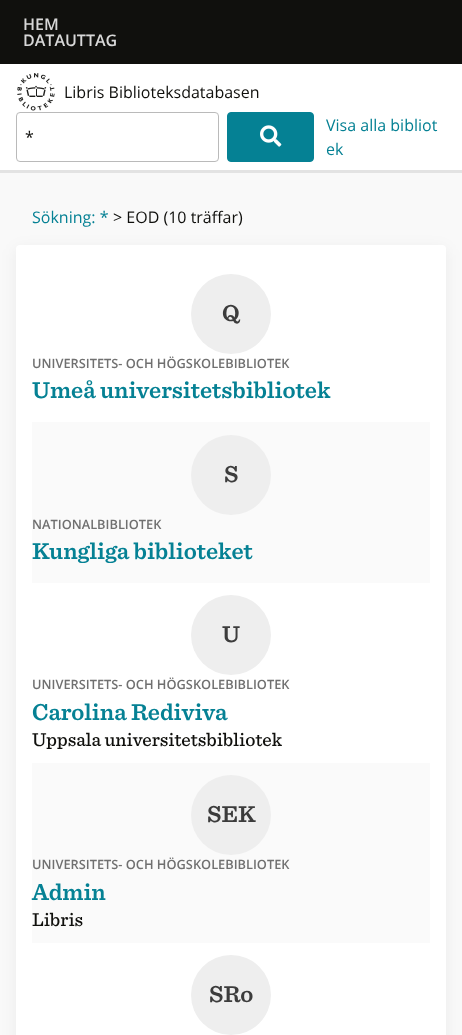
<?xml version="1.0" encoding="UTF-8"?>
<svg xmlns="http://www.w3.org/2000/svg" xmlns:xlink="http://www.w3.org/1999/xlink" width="462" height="1035">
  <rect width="100%" height="100%" fill="#ffffff" />
  <rect width="462" height="64" fill="#10100d" />
  <rect y="170" width="462" height="3" fill="#e3e3e3" />
  <image x="17" y="73" width="38" height="38" xlink:href="image1.png" />
  <rect x="16.5" y="112.5" width="202" height="49" rx="3.5" fill="none" stroke="#bababa" />
  <rect x="227.5" y="112.5" width="86" height="49" rx="3.5" fill="#058194" stroke="#058194" />
  <image x="260" y="125" width="22" height="22" xlink:href="image2.png" />
  <rect y="173" width="462" height="862" fill="#f9f9f9" />
  <rect x="16" y="249" width="430" height="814" rx="4" fill="#000000" fill-opacity="0.06" filter="blur(8px)" />
  <rect x="16" y="245" width="430" height="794" rx="4" fill="#ffffff" />
  <circle cx="231" cy="314" r="40" fill="#eeeeee" />
  <rect x="32" y="422" width="398" height="161" fill="#fafafa" />
  <circle cx="231" cy="475" r="40" fill="#eeeeee" />
  <circle cx="231" cy="635" r="40" fill="#eeeeee" />
  <rect x="32" y="763" width="398" height="180" fill="#fafafa" />
  <circle cx="231" cy="815" r="40" fill="#eeeeee" />
  <circle cx="231" cy="995" r="40" fill="#eeeeee" />
  <text x="23" y="30" style="font-family: Open Sans; font-size: 16px; font-weight: 600; fill: #d8d8d8">HEM</text>
  <text x="23" y="46" style="font-family: Open Sans; font-size: 16px; font-weight: 600; fill: #d8d8d8">DATAUTTAG</text>
  <text x="64" y="98" style="font-family: Open Sans; font-size: 16px; fill: #10100d">Libris Biblioteksdatabasen</text>
  <text x="25" y="143" style="font-family: Open Sans; font-size: 16px; fill: #10100d">*</text>
  <text x="326" y="131" style="font-family: Open Sans; font-size: 16px; fill: #058194">Visa alla bibliot</text>
  <text x="326" y="155" style="font-family: Open Sans; font-size: 16px; fill: #058194">ek</text>
  <text x="32" y="223" style="font-family: Open Sans; font-size: 16px; fill: #058194">Sökning: *</text>
  <text x="113" y="223" style="font-family: Open Sans; font-size: 16px; fill: #10100d">&gt; EOD (10 träffar)</text>
  <text x="222" y="321" style="font-family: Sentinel; font-size: 24px; font-weight: 600; fill: #3c3c3c">Q</text>
  <text x="32" y="368" style="font-family: Open Sans; font-size: 12.8px; font-weight: 600; fill: #707070">UNIVERSITETS- OCH HÖGSKOLEBIBLIOTEK</text>
  <text x="32" y="398" style="font-family: Sentinel; font-size: 24px; font-weight: 600; fill: #058194">Umeå universitetsbibliotek</text>
  <text x="224" y="482" style="font-family: Sentinel; font-size: 24px; font-weight: 600; fill: #3c3c3c">S</text>
  <text x="32" y="529" style="font-family: Open Sans; font-size: 12.8px; font-weight: 600; fill: #707070">NATIONALBIBLIOTEK</text>
  <text x="32" y="559" style="font-family: Sentinel; font-size: 24px; font-weight: 600; fill: #058194">Kungliga biblioteket</text>
  <text x="222" y="642" style="font-family: Sentinel; font-size: 24px; font-weight: 600; fill: #3c3c3c">U</text>
  <text x="32" y="689" style="font-family: Open Sans; font-size: 12.8px; font-weight: 600; fill: #707070">UNIVERSITETS- OCH HÖGSKOLEBIBLIOTEK</text>
  <text x="32" y="720" style="font-family: Sentinel; font-size: 24px; font-weight: 600; fill: #058194">Carolina Rediviva</text>
  <text x="32" y="746" style="font-family: Sentinel; font-size: 19.25px; font-weight: 500; fill: #10100d">Uppsala universitetsbibliotek</text>
  <text x="207" y="822" style="font-family: Sentinel; font-size: 24px; font-weight: 600; fill: #3c3c3c">SEK</text>
  <text x="32" y="869" style="font-family: Open Sans; font-size: 12.8px; font-weight: 600; fill: #707070">UNIVERSITETS- OCH HÖGSKOLEBIBLIOTEK</text>
  <text x="32" y="900" style="font-family: Sentinel; font-size: 24px; font-weight: 600; fill: #058194">Admin</text>
  <text x="32" y="926" style="font-family: Sentinel; font-size: 19.25px; font-weight: 500; fill: #10100d">Libris</text>
  <text x="209" y="1002" style="font-family: Sentinel; font-size: 24px; font-weight: 600; fill: #3c3c3c">SRo</text>
</svg>
